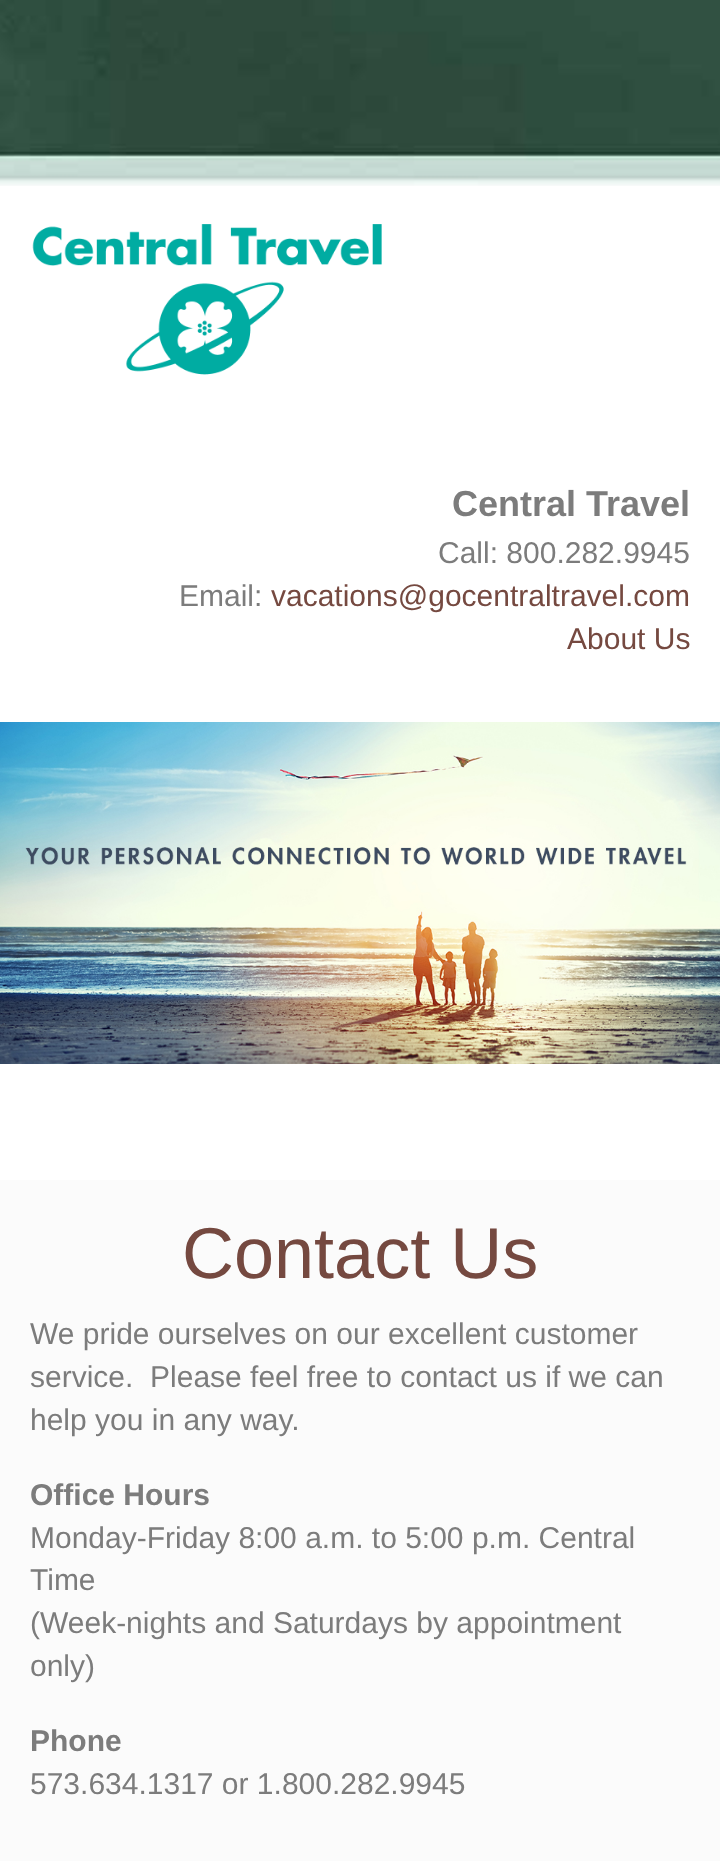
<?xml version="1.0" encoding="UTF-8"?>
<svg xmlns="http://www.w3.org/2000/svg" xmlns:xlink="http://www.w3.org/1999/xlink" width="720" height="1861">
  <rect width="100%" height="100%" fill="#ffffff" />
  <image x="0" y="0" width="720" height="186" xlink:href="image1.png" />
  <image x="32" y="224" width="350" height="151" xlink:href="image2.png" />
  <image x="0" y="722" width="720" height="342" xlink:href="image3.png" />
  <rect y="1180" width="720" height="681" fill="#fbfbfb" />
  <text x="452" y="516" style="font-family: Liberation Sans; font-size: 36px; font-weight: bold; fill: #7c7c7c">Central Travel</text>
  <text x="438" y="563" style="font-family: Liberation Sans; font-size: 30px; fill: #7c7c7c">Call: 800.282.9945</text>
  <text x="179" y="606" style="font-family: Liberation Sans; font-size: 30px; fill: #7c7c7c">Email:</text>
  <text x="271" y="606" style="font-family: Liberation Sans; font-size: 30px; fill: #754940">vacations@gocentraltravel.com</text>
  <text x="567" y="649" style="font-family: Liberation Sans; font-size: 30px; fill: #754940">About Us</text>
  <text x="182" y="1278" style="font-family: Liberation Sans; font-size: 72px; fill: #754940">Contact Us</text>
  <text x="30" y="1344" style="font-family: Liberation Sans; font-size: 30px; fill: #7c7c7c">We pride ourselves on our excellent customer</text>
  <text x="30" y="1387" style="font-family: Liberation Sans; font-size: 30px; fill: #7c7c7c" xml:space="preserve">service.  Please feel free to contact us if we can</text>
  <text x="30" y="1430" style="font-family: Liberation Sans; font-size: 30px; fill: #7c7c7c">help you in any way.</text>
  <text x="30" y="1505" style="font-family: Liberation Sans; font-size: 30px; font-weight: bold; fill: #7c7c7c">Office Hours</text>
  <text x="30" y="1548" style="font-family: Liberation Sans; font-size: 30px; fill: #7c7c7c">Monday-Friday 8:00 a.m. to 5:00 p.m. Central</text>
  <text x="30" y="1590" style="font-family: Liberation Sans; font-size: 30px; fill: #7c7c7c">Time</text>
  <text x="30" y="1633" style="font-family: Liberation Sans; font-size: 30px; fill: #7c7c7c">(Week-nights and Saturdays by appointment</text>
  <text x="30" y="1676" style="font-family: Liberation Sans; font-size: 30px; fill: #7c7c7c">only)</text>
  <text x="30" y="1751" style="font-family: Liberation Sans; font-size: 30px; font-weight: bold; fill: #7c7c7c">Phone</text>
  <text x="30" y="1794" style="font-family: Liberation Sans; font-size: 30px; fill: #7c7c7c">573.634.1317 or 1.800.282.9945</text>
</svg>
